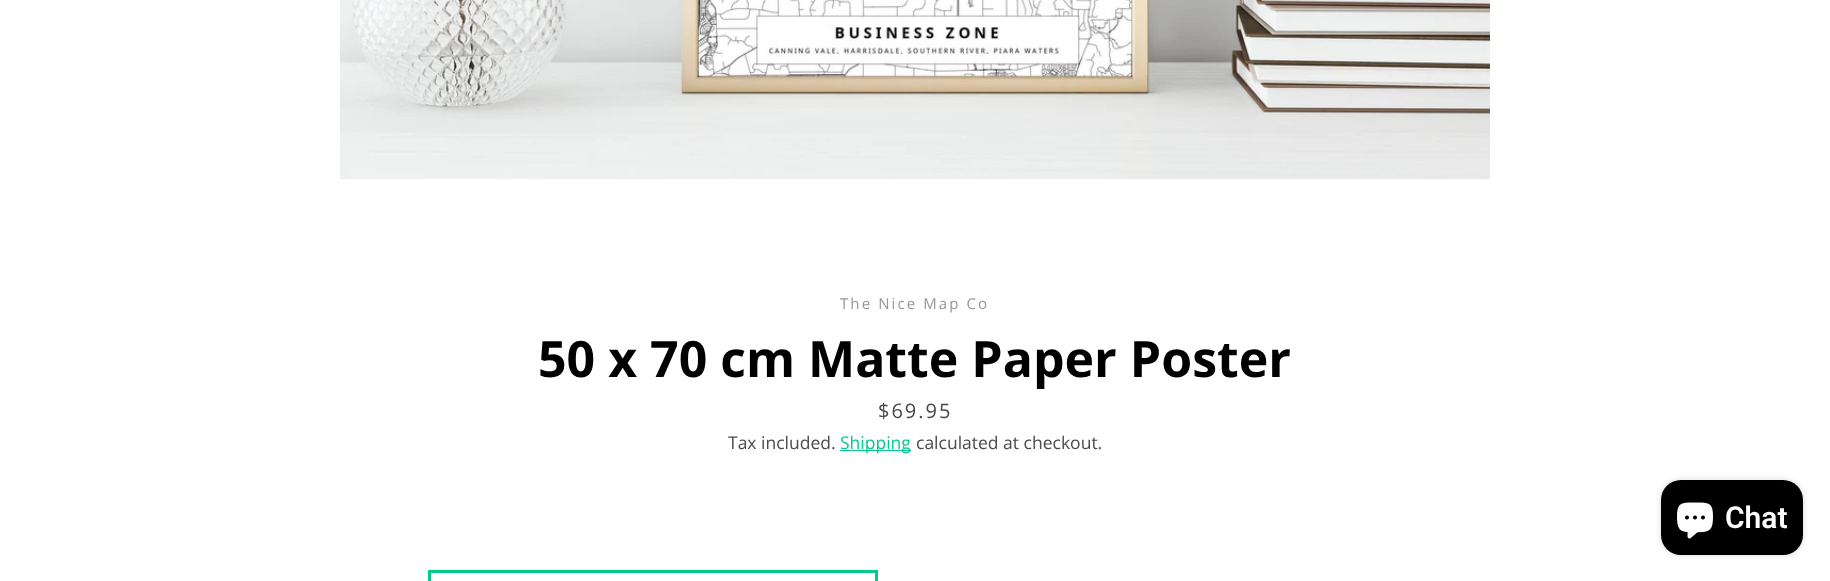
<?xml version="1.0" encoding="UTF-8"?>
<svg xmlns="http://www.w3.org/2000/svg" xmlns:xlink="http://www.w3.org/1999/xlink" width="1830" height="581">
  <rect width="100%" height="100%" fill="#ffffff" />
  <image x="340" y="0" width="1150" height="180" xlink:href="image1.png" />
  <rect x="840" y="450" width="71" height="1" fill="#04ca8c" />
  <rect x="429.5" y="571.5" width="447" height="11" fill="none" stroke="#04ca8c" stroke-width="3" />
  <rect x="1661" y="480" width="142" height="75" rx="20" fill="#000000" fill-opacity="0.15" filter="blur(3px)" />
  <rect x="1661" y="480" width="142" height="75" rx="20" fill="#000000" />
  <image x="1677" y="502" width="36" height="37" xlink:href="image2.png" />
  <text x="840" y="309" style="font-family: Open Sans; font-size: 15px; letter-spacing: 2.1px; fill: #979797">The Nice Map Co</text>
  <text x="538" y="377" style="font-family: Open Sans; font-size: 50px; font-weight: bold; fill: #000000">50 x 70 cm Matte Paper Poster</text>
  <text x="878" y="418" style="font-family: Open Sans; font-size: 20px; letter-spacing: 2px; fill: #4a4a4a">$69.95</text>
  <text x="728" y="449" style="font-family: Open Sans; font-size: 17.5px; fill: #4a4a4a">Tax included.</text>
  <text x="840" y="449" style="font-family: Open Sans; font-size: 17.5px; fill: #04ca8c">Shipping</text>
  <text x="916" y="449" style="font-family: Open Sans; font-size: 17.5px; fill: #4a4a4a">calculated at checkout.</text>
  <text x="1725" y="528" style="font-family: Roboto; font-size: 30px; font-weight: 600; fill: #ffffff">Chat</text>
</svg>
